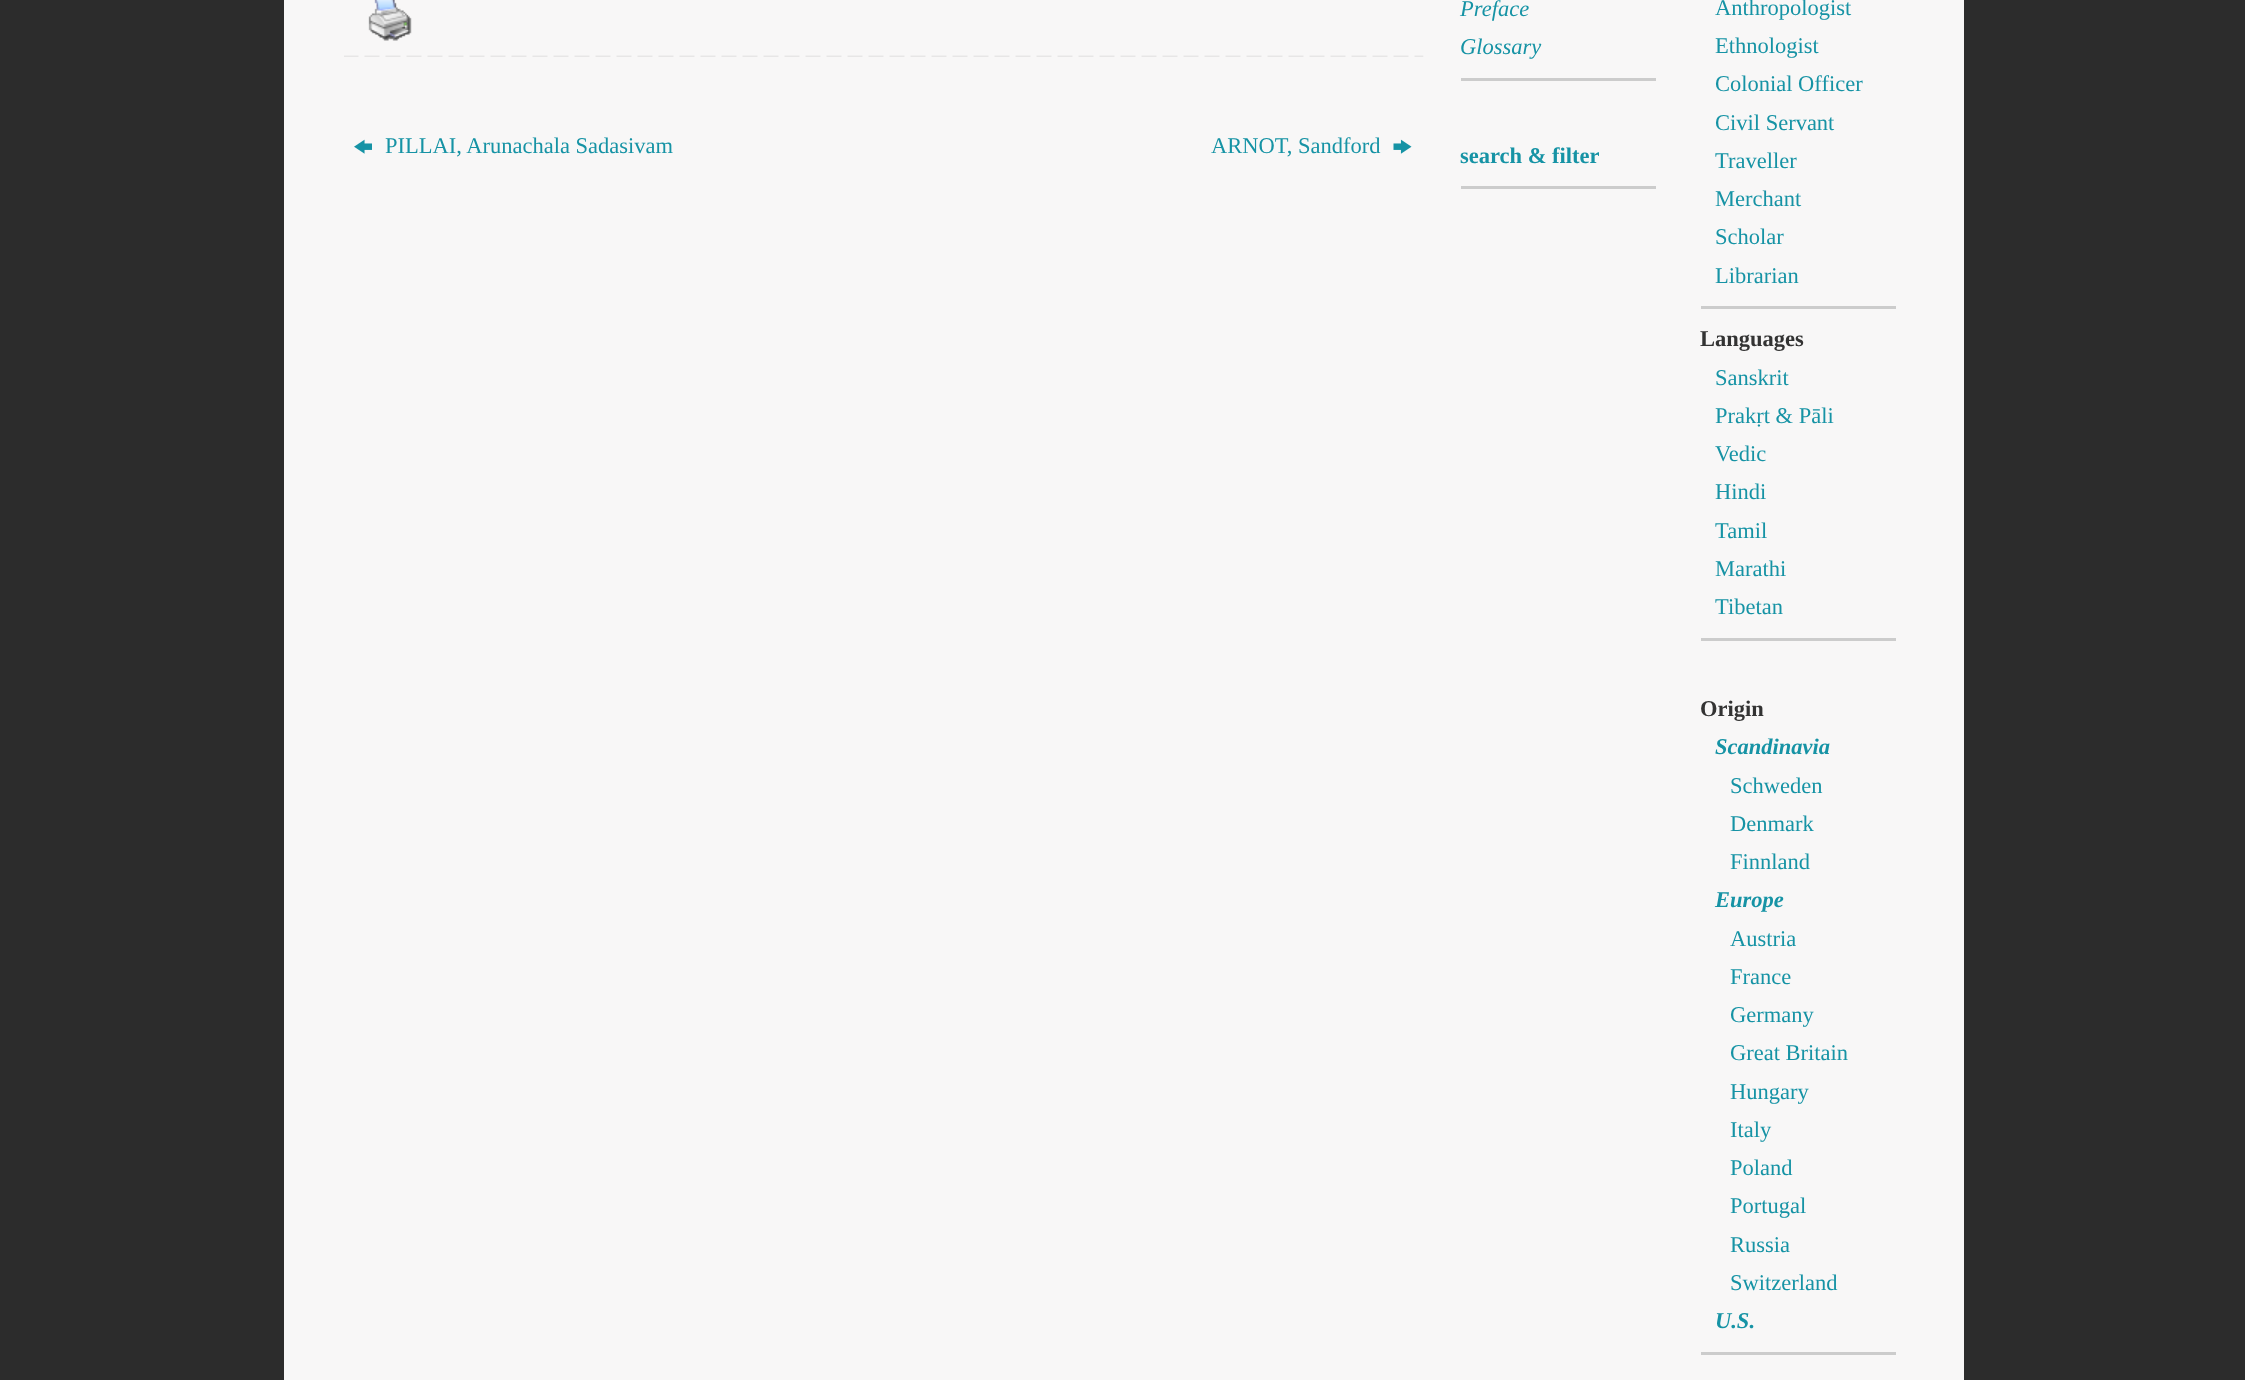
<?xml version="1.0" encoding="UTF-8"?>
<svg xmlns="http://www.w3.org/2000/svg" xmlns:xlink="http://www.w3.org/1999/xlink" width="2245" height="1380">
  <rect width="100%" height="100%" fill="#2c2c2c" />
  <rect x="284" width="1680" height="1380" fill="#f8f7f7" />
  <image x="368" y="0" width="44" height="41" xlink:href="image1.png" />
  <image x="344" y="55" width="1080" height="2" xlink:href="image2.png" />
  <image x="354" y="139" width="18" height="15" xlink:href="image3.png" />
  <image x="1393" y="139" width="19" height="15" xlink:href="image4.png" />
  <rect x="1461" y="78" width="195" height="3" fill="#cccccc" />
  <rect x="1461" y="186" width="195" height="3" fill="#cccccc" />
  <rect x="1701" y="306" width="195" height="3" fill="#cccccc" />
  <rect x="1701" y="638" width="195" height="3" fill="#cccccc" />
  <rect x="1701" y="1352" width="195" height="3" fill="#cccccc" />
  <text x="385" y="153" style="font-family: Liberation Serif; font-size: 22.5px; fill: #1693a5">PILLAI, Arunachala Sadasivam</text>
  <text x="1211" y="153" style="font-family: Liberation Serif; font-size: 22.5px; fill: #1693a5">ARNOT, Sandford</text>
  <text x="1460" y="16" style="font-family: Liberation Serif; font-size: 22.5px; font-style: italic; fill: #1693a5">Preface</text>
  <text x="1460" y="54" style="font-family: Liberation Serif; font-size: 22.5px; font-style: italic; fill: #1693a5">Glossary</text>
  <text x="1460" y="163" style="font-family: Liberation Serif; font-size: 22.5px; font-weight: bold; fill: #1693a5">search &amp; filter</text>
  <text x="1715" y="15" style="font-family: Liberation Serif; font-size: 22.5px; fill: #1693a5">Anthropologist</text>
  <text x="1715" y="53" style="font-family: Liberation Serif; font-size: 22.5px; fill: #1693a5">Ethnologist</text>
  <text x="1715" y="91" style="font-family: Liberation Serif; font-size: 22.5px; fill: #1693a5">Colonial Officer</text>
  <text x="1715" y="130" style="font-family: Liberation Serif; font-size: 22.5px; fill: #1693a5">Civil Servant</text>
  <text x="1715" y="168" style="font-family: Liberation Serif; font-size: 22.5px; fill: #1693a5">Traveller</text>
  <text x="1715" y="206" style="font-family: Liberation Serif; font-size: 22.5px; fill: #1693a5">Merchant</text>
  <text x="1715" y="244" style="font-family: Liberation Serif; font-size: 22.5px; fill: #1693a5">Scholar</text>
  <text x="1715" y="283" style="font-family: Liberation Serif; font-size: 22.5px; fill: #1693a5">Librarian</text>
  <text x="1700" y="346" style="font-family: Liberation Serif; font-size: 22.5px; font-weight: bold; fill: #333333">Languages</text>
  <text x="1715" y="385" style="font-family: Liberation Serif; font-size: 22.5px; fill: #1693a5">Sanskrit</text>
  <text x="1715" y="423" style="font-family: Liberation Serif; font-size: 22.5px; fill: #1693a5">Prakṛt &amp; Pāli</text>
  <text x="1715" y="461" style="font-family: Liberation Serif; font-size: 22.5px; fill: #1693a5">Vedic</text>
  <text x="1715" y="499" style="font-family: Liberation Serif; font-size: 22.5px; fill: #1693a5">Hindi</text>
  <text x="1715" y="538" style="font-family: Liberation Serif; font-size: 22.5px; fill: #1693a5">Tamil</text>
  <text x="1715" y="576" style="font-family: Liberation Serif; font-size: 22.5px; fill: #1693a5">Marathi</text>
  <text x="1715" y="614" style="font-family: Liberation Serif; font-size: 22.5px; fill: #1693a5">Tibetan</text>
  <text x="1700" y="716" style="font-family: Liberation Serif; font-size: 22.5px; font-weight: bold; fill: #333333">Origin</text>
  <text x="1715" y="754" style="font-family: Liberation Serif; font-size: 22.5px; font-weight: bold; font-style: italic; fill: #1693a5">Scandinavia</text>
  <text x="1730" y="793" style="font-family: Liberation Serif; font-size: 22.5px; fill: #1693a5">Schweden</text>
  <text x="1730" y="831" style="font-family: Liberation Serif; font-size: 22.5px; fill: #1693a5">Denmark</text>
  <text x="1730" y="869" style="font-family: Liberation Serif; font-size: 22.5px; fill: #1693a5">Finnland</text>
  <text x="1715" y="907" style="font-family: Liberation Serif; font-size: 22.5px; font-weight: bold; font-style: italic; fill: #1693a5">Europe</text>
  <text x="1730" y="946" style="font-family: Liberation Serif; font-size: 22.5px; fill: #1693a5">Austria</text>
  <text x="1730" y="984" style="font-family: Liberation Serif; font-size: 22.5px; fill: #1693a5">France</text>
  <text x="1730" y="1022" style="font-family: Liberation Serif; font-size: 22.5px; fill: #1693a5">Germany</text>
  <text x="1730" y="1060" style="font-family: Liberation Serif; font-size: 22.5px; fill: #1693a5">Great Britain</text>
  <text x="1730" y="1099" style="font-family: Liberation Serif; font-size: 22.5px; fill: #1693a5">Hungary</text>
  <text x="1730" y="1137" style="font-family: Liberation Serif; font-size: 22.5px; fill: #1693a5">Italy</text>
  <text x="1730" y="1175" style="font-family: Liberation Serif; font-size: 22.5px; fill: #1693a5">Poland</text>
  <text x="1730" y="1213" style="font-family: Liberation Serif; font-size: 22.5px; fill: #1693a5">Portugal</text>
  <text x="1730" y="1252" style="font-family: Liberation Serif; font-size: 22.5px; fill: #1693a5">Russia</text>
  <text x="1730" y="1290" style="font-family: Liberation Serif; font-size: 22.5px; fill: #1693a5">Switzerland</text>
  <text x="1715" y="1328" style="font-family: Liberation Serif; font-size: 22.5px; font-weight: bold; font-style: italic; fill: #1693a5">U.S.</text>
</svg>
